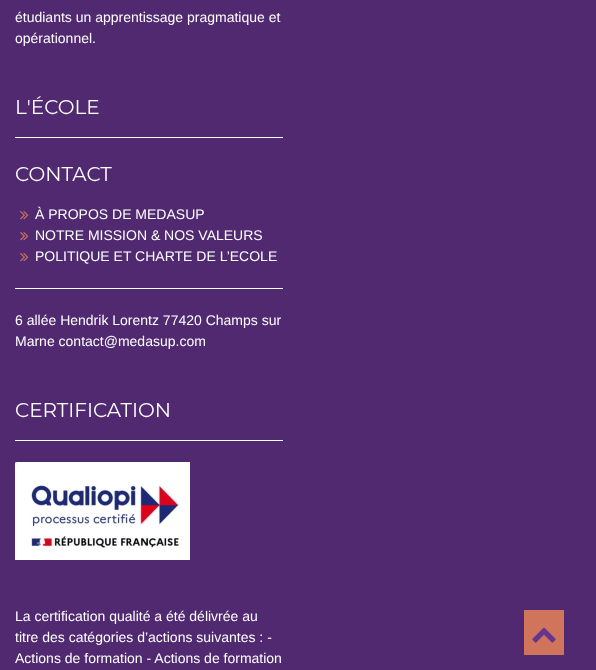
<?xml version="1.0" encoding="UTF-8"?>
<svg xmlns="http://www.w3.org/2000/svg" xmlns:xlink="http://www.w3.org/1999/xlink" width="596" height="670">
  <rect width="100%" height="100%" fill="#502970" />
  <rect x="15" y="137" width="268" height="1" fill="#ffffff" />
  <image x="20" y="211" width="9" height="9" xlink:href="image1.png" />
  <image x="20" y="232" width="9" height="9" xlink:href="image1.png" />
  <image x="20" y="253" width="9" height="9" xlink:href="image1.png" />
  <rect x="15" y="288" width="268" height="1" fill="#ffffff" />
  <rect x="15" y="440" width="268" height="1" fill="#ffffff" />
  <image x="15" y="462" width="175" height="98" xlink:href="image2.png" />
  <rect x="524" y="610" width="40" height="45" fill="#d0745c" />
  <image x="532" y="627" width="24" height="16" xlink:href="image3.png" />
  <text x="15" y="22" style="font-family: Liberation Sans; font-size: 14px; fill: #ffffff">étudiants un apprentissage pragmatique et</text>
  <text x="15" y="43" style="font-family: Liberation Sans; font-size: 14px; fill: #ffffff">opérationnel.</text>
  <text x="15" y="114" style="font-family: Montserrat; font-size: 20px; fill: #ffffff">L'ÉCOLE</text>
  <text x="15" y="181" style="font-family: Montserrat; font-size: 20px; fill: #ffffff">CONTACT</text>
  <text x="35" y="219" style="font-family: Liberation Sans; font-size: 14px; fill: #ffffff">À PROPOS DE MEDASUP</text>
  <text x="35" y="240" style="font-family: Liberation Sans; font-size: 14px; fill: #ffffff">NOTRE MISSION &amp; NOS VALEURS</text>
  <text x="35" y="261" style="font-family: Liberation Sans; font-size: 14px; fill: #ffffff">POLITIQUE ET CHARTE DE L’ECOLE</text>
  <text x="15" y="325" style="font-family: Liberation Sans; font-size: 14px; fill: #ffffff">6 allée Hendrik Lorentz 77420 Champs sur</text>
  <text x="15" y="346" style="font-family: Liberation Sans; font-size: 14px; fill: #ffffff">Marne contact@medasup.com</text>
  <text x="15" y="417" style="font-family: Montserrat; font-size: 20px; fill: #ffffff">CERTIFICATION</text>
  <text x="15" y="621" style="font-family: Liberation Sans; font-size: 14px; fill: #ffffff">La certification qualité a été délivrée au</text>
  <text x="15" y="642" style="font-family: Liberation Sans; font-size: 14px; fill: #ffffff">titre des catégories d’actions suivantes : -</text>
  <text x="15" y="663" style="font-family: Liberation Sans; font-size: 14px; fill: #ffffff">Actions de formation - Actions de formation</text>
</svg>
